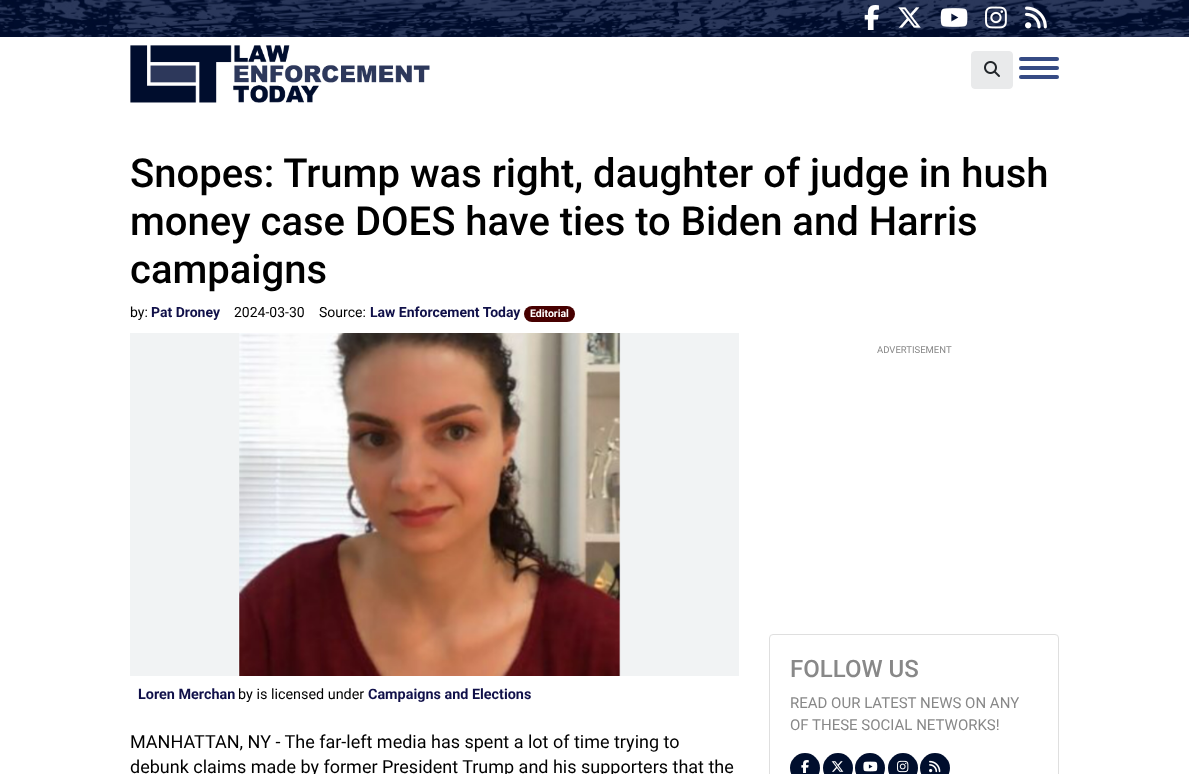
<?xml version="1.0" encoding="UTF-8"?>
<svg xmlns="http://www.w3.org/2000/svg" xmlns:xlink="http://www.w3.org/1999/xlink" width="1189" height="774">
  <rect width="100%" height="100%" fill="#ffffff" />
  <image x="0" y="0" width="1189" height="37" xlink:href="image1.png" />
  <image x="864" y="5" width="15" height="25" xlink:href="image2.png" />
  <image x="898" y="7" width="23" height="21" xlink:href="image3.png" />
  <image x="940" y="8" width="28" height="19" xlink:href="image4.png" />
  <image x="985" y="6" width="22" height="23" xlink:href="image5.png" />
  <image x="1025" y="6" width="22" height="23" xlink:href="image6.png" />
  <image x="130" y="45" width="300" height="58" xlink:href="image7.png" />
  <rect x="971.5" y="51.5" width="41" height="37" rx="3.5" fill="#e9eaeb" stroke="#e9eaeb" />
  <image x="984" y="61" width="16" height="16" xlink:href="image8.png" />
  <rect x="1019" y="57" width="40" height="4" rx="2" fill="#364b84" />
  <rect x="1019" y="66" width="40" height="4" rx="2" fill="#364b84" />
  <rect x="1019" y="75" width="40" height="4" rx="2" fill="#364b84" />
  <rect x="524" y="306" width="51" height="16" rx="8" fill="#470000" />
  <image x="130" y="333" width="609" height="343" xlink:href="image9.png" />
  <rect x="769.5" y="634.5" width="289" height="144" rx="3.5" fill="none" stroke="#dfdfdf" />
  <circle cx="805" cy="768" r="15" fill="#000e2d" />
  <image x="801" y="760" width="8" height="13" xlink:href="image10.png" />
  <circle cx="838" cy="768" r="15" fill="#000e2d" />
  <image x="831" y="761" width="13" height="11" xlink:href="image11.png" />
  <circle cx="870" cy="768" r="15" fill="#000e2d" />
  <image x="863" y="761" width="15" height="11" xlink:href="image12.png" />
  <circle cx="903" cy="768" r="15" fill="#000e2d" />
  <image x="897" y="760" width="12" height="13" xlink:href="image13.png" />
  <circle cx="935" cy="768" r="15" fill="#000e2d" />
  <image x="929" y="760" width="12" height="13" xlink:href="image14.png" />
  <text x="130" y="187" style="font-family: Roboto; font-size: 40px; font-weight: 500; fill: #000000">Snopes: Trump was right, daughter of judge in hush</text>
  <text x="130" y="235" style="font-family: Roboto; font-size: 40px; font-weight: 500; fill: #000000">money case DOES have ties to Biden and Harris</text>
  <text x="130" y="283" style="font-family: Roboto; font-size: 40px; font-weight: 500; fill: #000000">campaigns</text>
  <text x="130" y="317" style="font-family: Roboto; font-size: 14px; fill: #000000">by:</text>
  <text x="151" y="317" style="font-family: Roboto; font-size: 14px; font-weight: bold; fill: #101049">Pat Droney</text>
  <text x="234" y="317" style="font-family: Roboto; font-size: 14px; fill: #000000">2024-03-30</text>
  <text x="319" y="317" style="font-family: Roboto; font-size: 14px; fill: #000000">Source:</text>
  <text x="370" y="317" style="font-family: Roboto; font-size: 14px; font-weight: bold; fill: #101049">Law Enforcement Today</text>
  <text x="530" y="317" style="font-family: Roboto; font-size: 10.5px; font-weight: bold; fill: #ffffff">Editorial</text>
  <text x="138" y="699" style="font-family: Roboto; font-size: 14.4px; font-weight: bold; fill: #101049">Loren Merchan</text>
  <text x="238" y="699" style="font-family: Roboto; font-size: 14.4px; fill: #000000">by is licensed under</text>
  <text x="368" y="699" style="font-family: Roboto; font-size: 14.4px; font-weight: bold; fill: #101049">Campaigns and Elections</text>
  <text x="130" y="748" style="font-family: Roboto; font-size: 18px; fill: #000000">MANHATTAN, NY - The far-left media has spent a lot of time trying to</text>
  <text x="130" y="773" style="font-family: Roboto; font-size: 18px; fill: #000000">debunk claims made by former President Trump and his supporters that the</text>
  <text x="877" y="353" style="font-family: Roboto; font-size: 9.5px; fill: #888888">ADVERTISEMENT</text>
  <text x="790" y="677" style="font-family: Roboto; font-size: 24px; font-weight: 500; fill: #888888">FOLLOW US</text>
  <text x="790" y="708" style="font-family: Roboto; font-size: 15px; fill: #888888">READ OUR LATEST NEWS ON ANY</text>
  <text x="790" y="730" style="font-family: Roboto; font-size: 15px; fill: #888888">OF THESE SOCIAL NETWORKS!</text>
</svg>
